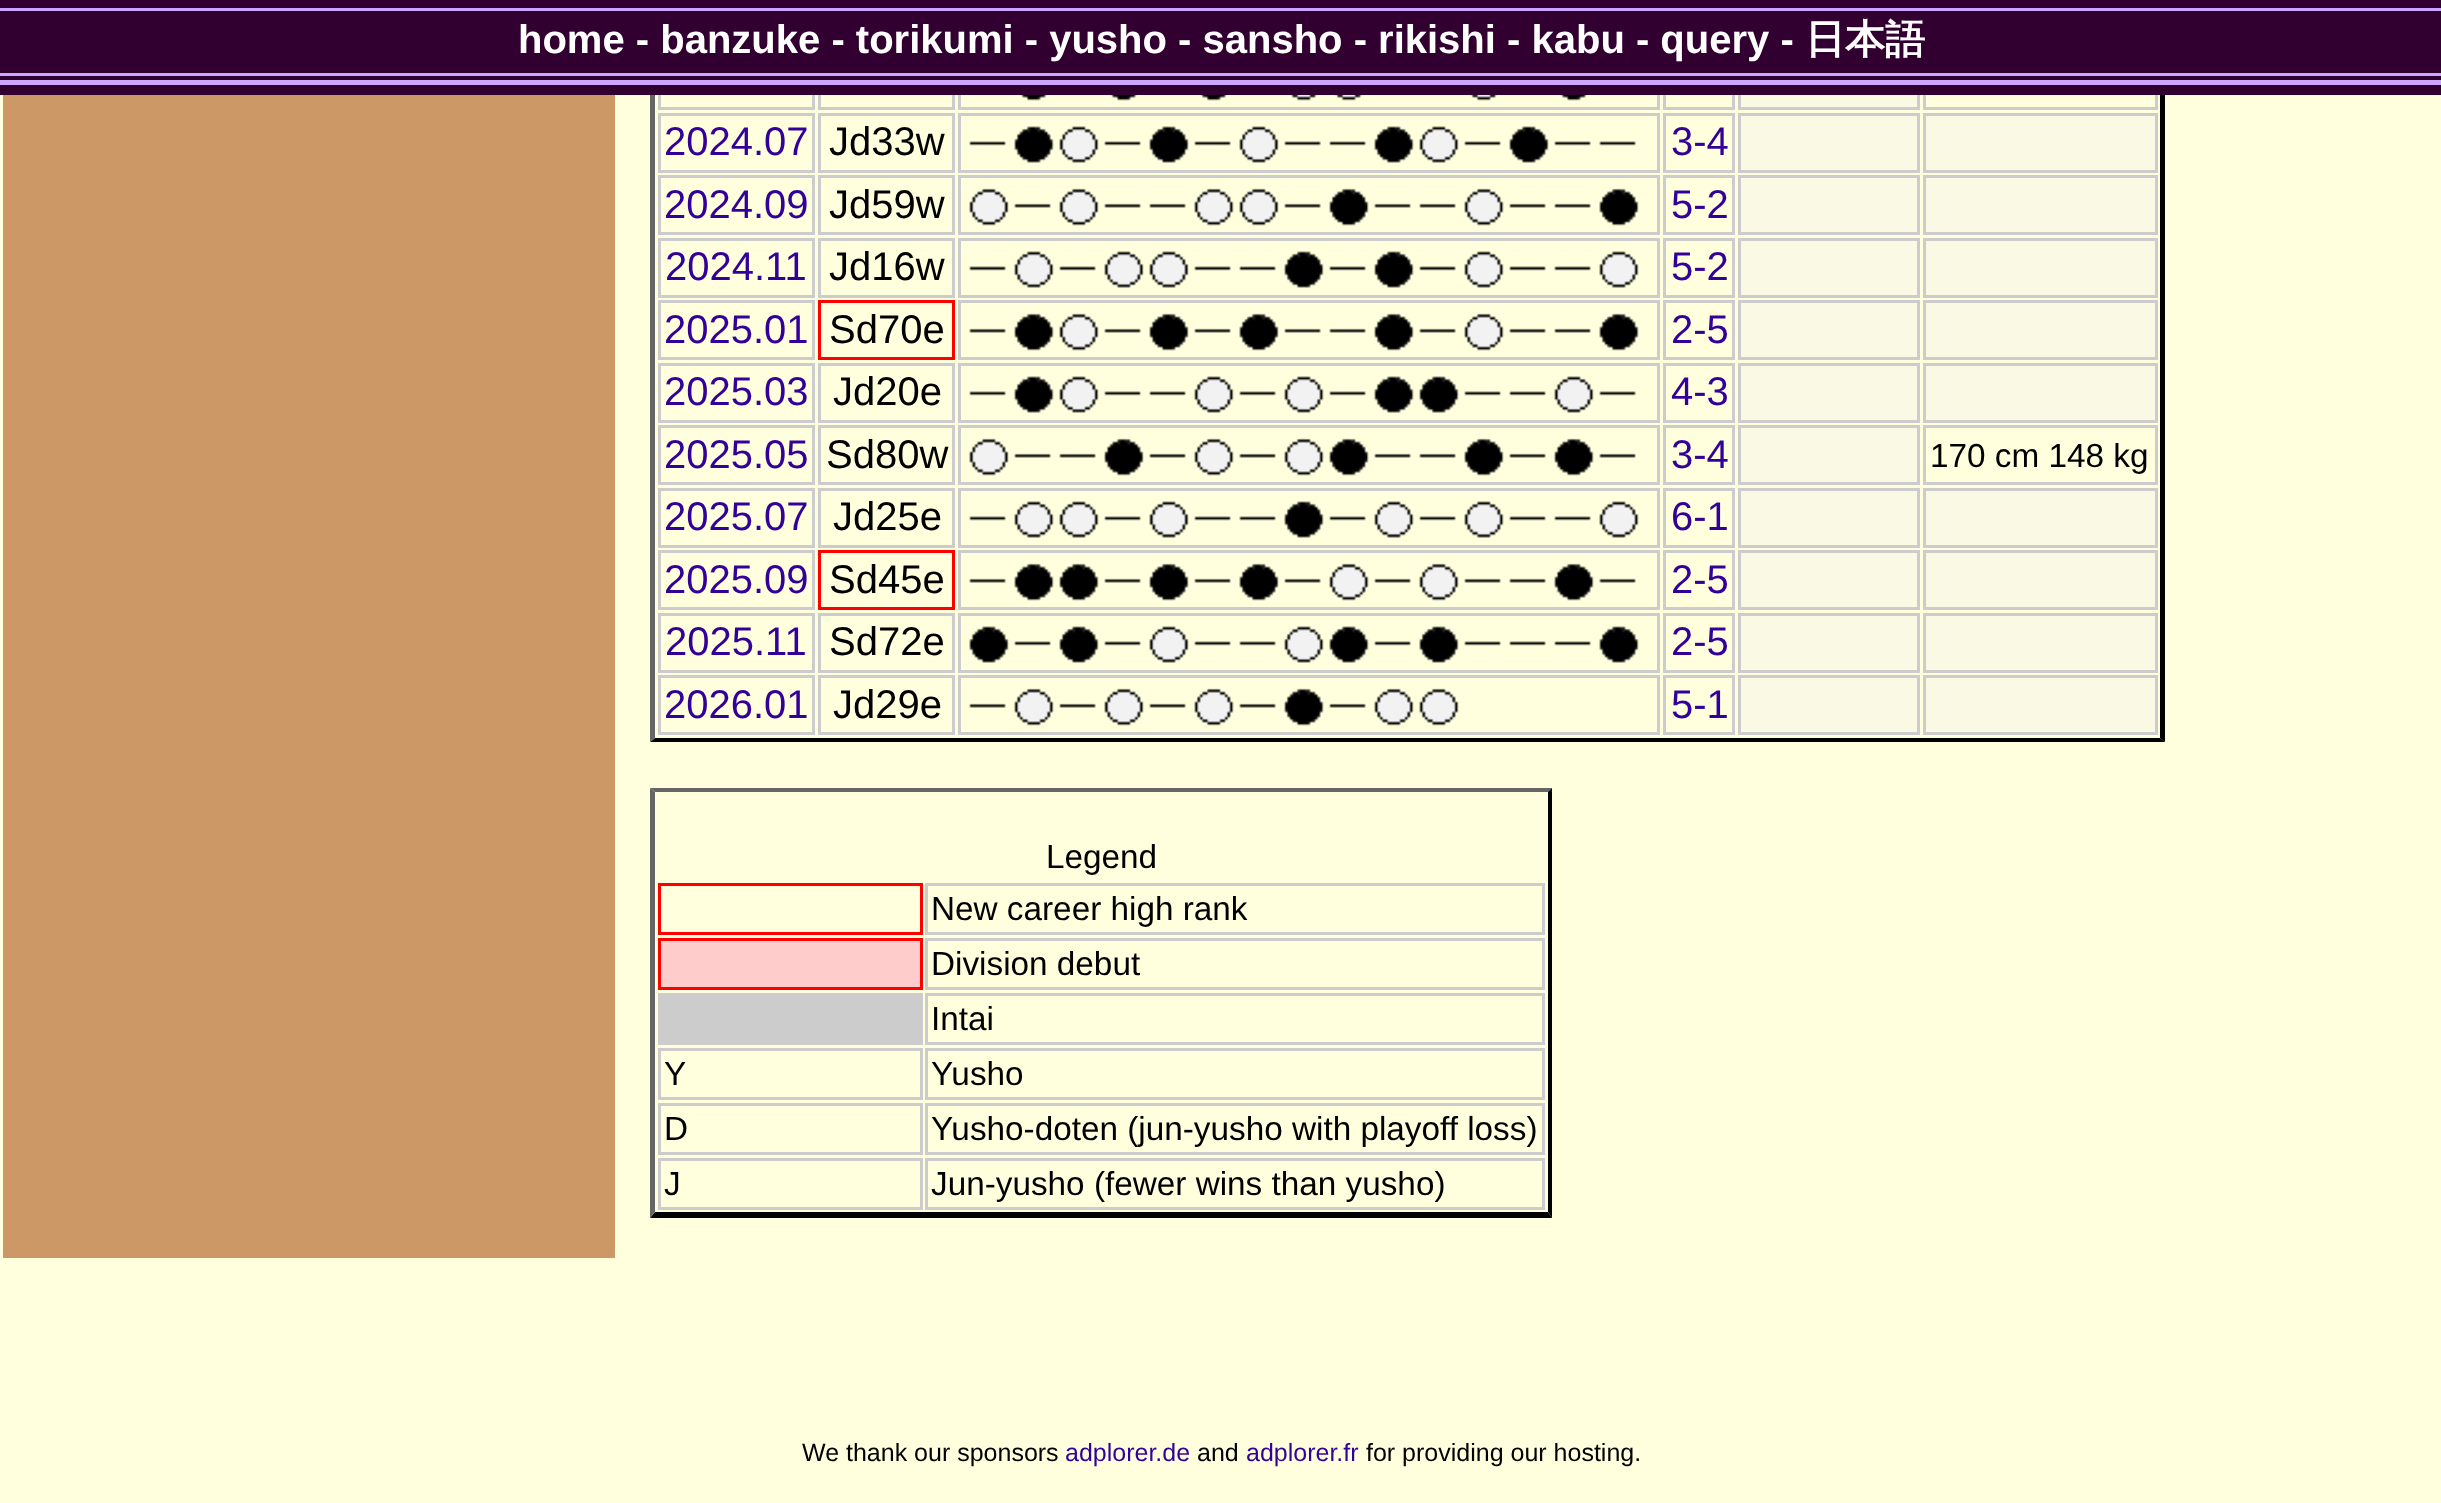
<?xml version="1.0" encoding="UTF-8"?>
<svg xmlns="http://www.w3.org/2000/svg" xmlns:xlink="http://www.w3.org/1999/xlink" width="2441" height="1503">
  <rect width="100%" height="100%" fill="#ffffde" />
  <path d="M 2165 -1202 v 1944 l -5 -4 v -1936 z" fill="#000000" />
  <path d="M 2165 742 h -1515 l 5 -4 h 1505 z" fill="#000000" />
  <path d="M 650 742 v -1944 l 5 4 v 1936 z" fill="#666666" />
  <rect x="659.5" y="51.5" width="154" height="57" fill="none" stroke="#cccccc" stroke-width="3" />
  <rect x="819.5" y="51.5" width="134" height="57" fill="none" stroke="#cccccc" stroke-width="3" />
  <rect x="959.5" y="51.5" width="699" height="57" fill="none" stroke="#cccccc" stroke-width="3" />
  <rect x="1664.5" y="51.5" width="69" height="57" fill="none" stroke="#cccccc" stroke-width="3" />
  <rect x="1741" y="95" width="176" height="12" fill="#fafae4" />
  <rect x="1739.5" y="51.5" width="179" height="57" fill="none" stroke="#cccccc" stroke-width="3" />
  <rect x="1924.5" y="51.5" width="232" height="57" fill="none" stroke="#cccccc" stroke-width="3" />
  <rect width="2441" height="95" fill="#310031" />
  <rect y="80" width="2441" height="5" fill="#cda5ff" />
  <rect y="8" width="2441" height="3" fill="#cda5ff" />
  <rect y="73" width="2441" height="3" fill="#cda5ff" />
  <rect x="3" y="95" width="612" height="1163" fill="#cc9966" />
  <image x="1019" y="95" width="29" height="6" xlink:href="image1.png" />
  <image x="1109" y="95" width="29" height="6" xlink:href="image2.png" />
  <image x="1199" y="95" width="29" height="6" xlink:href="image1.png" />
  <image x="1289" y="95" width="29" height="6" xlink:href="image3.png" />
  <image x="1334" y="95" width="29" height="6" xlink:href="image3.png" />
  <image x="1469" y="95" width="29" height="6" xlink:href="image3.png" />
  <image x="1559" y="95" width="29" height="6" xlink:href="image4.png" />
  <rect x="659.5" y="114.5" width="154" height="57" fill="none" stroke="#cccccc" stroke-width="3" />
  <rect x="819.5" y="114.5" width="134" height="57" fill="none" stroke="#cccccc" stroke-width="3" />
  <rect x="959.5" y="114.5" width="699" height="57" fill="none" stroke="#cccccc" stroke-width="3" />
  <image x="969" y="141" width="37" height="5" xlink:href="image5.png" />
  <image x="1014" y="126" width="40" height="37" xlink:href="image6.png" />
  <image x="1059" y="126" width="40" height="37" xlink:href="image7.png" />
  <image x="1104" y="141" width="37" height="5" xlink:href="image5.png" />
  <image x="1149" y="126" width="40" height="37" xlink:href="image8.png" />
  <image x="1194" y="141" width="37" height="5" xlink:href="image5.png" />
  <image x="1239" y="126" width="40" height="37" xlink:href="image9.png" />
  <image x="1284" y="141" width="37" height="5" xlink:href="image5.png" />
  <image x="1329" y="141" width="37" height="5" xlink:href="image5.png" />
  <image x="1374" y="126" width="40" height="37" xlink:href="image6.png" />
  <image x="1419" y="126" width="40" height="37" xlink:href="image10.png" />
  <image x="1464" y="141" width="37" height="5" xlink:href="image5.png" />
  <image x="1509" y="126" width="40" height="37" xlink:href="image11.png" />
  <image x="1554" y="141" width="37" height="5" xlink:href="image5.png" />
  <image x="1599" y="141" width="37" height="5" xlink:href="image5.png" />
  <rect x="1664.5" y="114.5" width="69" height="57" fill="none" stroke="#cccccc" stroke-width="3" />
  <rect x="1739.5" y="114.5" width="179" height="57" fill="#fafae4" stroke="#cccccc" stroke-width="3" />
  <rect x="1924.5" y="114.5" width="232" height="57" fill="#fafae4" stroke="#cccccc" stroke-width="3" />
  <rect x="659.5" y="176.5" width="154" height="57" fill="none" stroke="#cccccc" stroke-width="3" />
  <rect x="819.5" y="176.5" width="134" height="57" fill="none" stroke="#cccccc" stroke-width="3" />
  <rect x="959.5" y="176.5" width="699" height="57" fill="none" stroke="#cccccc" stroke-width="3" />
  <image x="969" y="188" width="40" height="38" xlink:href="image12.png" />
  <image x="1014" y="203" width="37" height="5" xlink:href="image13.png" />
  <image x="1059" y="188" width="40" height="38" xlink:href="image14.png" />
  <image x="1104" y="203" width="37" height="5" xlink:href="image13.png" />
  <image x="1149" y="203" width="37" height="5" xlink:href="image13.png" />
  <image x="1194" y="188" width="40" height="38" xlink:href="image15.png" />
  <image x="1239" y="188" width="40" height="38" xlink:href="image16.png" />
  <image x="1284" y="203" width="37" height="5" xlink:href="image13.png" />
  <image x="1329" y="188" width="40" height="38" xlink:href="image17.png" />
  <image x="1374" y="203" width="37" height="5" xlink:href="image13.png" />
  <image x="1419" y="203" width="37" height="5" xlink:href="image13.png" />
  <image x="1464" y="188" width="40" height="38" xlink:href="image15.png" />
  <image x="1509" y="203" width="37" height="5" xlink:href="image13.png" />
  <image x="1554" y="203" width="37" height="5" xlink:href="image13.png" />
  <image x="1599" y="188" width="40" height="38" xlink:href="image17.png" />
  <rect x="1664.5" y="176.5" width="69" height="57" fill="none" stroke="#cccccc" stroke-width="3" />
  <rect x="1739.5" y="176.5" width="179" height="57" fill="#fafae4" stroke="#cccccc" stroke-width="3" />
  <rect x="1924.5" y="176.5" width="232" height="57" fill="#fafae4" stroke="#cccccc" stroke-width="3" />
  <rect x="659.5" y="239.5" width="154" height="57" fill="none" stroke="#cccccc" stroke-width="3" />
  <rect x="819.5" y="239.5" width="134" height="57" fill="none" stroke="#cccccc" stroke-width="3" />
  <rect x="959.5" y="239.5" width="699" height="57" fill="none" stroke="#cccccc" stroke-width="3" />
  <image x="969" y="266" width="37" height="5" xlink:href="image18.png" />
  <image x="1014" y="251" width="40" height="37" xlink:href="image19.png" />
  <image x="1059" y="266" width="37" height="5" xlink:href="image18.png" />
  <image x="1104" y="251" width="40" height="37" xlink:href="image20.png" />
  <image x="1149" y="251" width="40" height="37" xlink:href="image20.png" />
  <image x="1194" y="266" width="37" height="5" xlink:href="image18.png" />
  <image x="1239" y="266" width="37" height="5" xlink:href="image18.png" />
  <image x="1284" y="251" width="40" height="37" xlink:href="image21.png" />
  <image x="1329" y="266" width="37" height="5" xlink:href="image18.png" />
  <image x="1374" y="251" width="40" height="37" xlink:href="image21.png" />
  <image x="1419" y="266" width="37" height="5" xlink:href="image18.png" />
  <image x="1464" y="251" width="40" height="37" xlink:href="image19.png" />
  <image x="1509" y="266" width="37" height="5" xlink:href="image18.png" />
  <image x="1554" y="266" width="37" height="5" xlink:href="image18.png" />
  <image x="1599" y="251" width="40" height="37" xlink:href="image19.png" />
  <rect x="1664.5" y="239.5" width="69" height="57" fill="none" stroke="#cccccc" stroke-width="3" />
  <rect x="1739.5" y="239.5" width="179" height="57" fill="#fafae4" stroke="#cccccc" stroke-width="3" />
  <rect x="1924.5" y="239.5" width="232" height="57" fill="#fafae4" stroke="#cccccc" stroke-width="3" />
  <rect x="659.5" y="301.5" width="154" height="57" fill="none" stroke="#cccccc" stroke-width="3" />
  <rect x="819.5" y="301.5" width="134" height="57" fill="none" stroke="#ff0000" stroke-width="3" />
  <rect x="959.5" y="301.5" width="699" height="57" fill="none" stroke="#cccccc" stroke-width="3" />
  <image x="969" y="328" width="37" height="5" xlink:href="image13.png" />
  <image x="1014" y="313" width="40" height="38" xlink:href="image17.png" />
  <image x="1059" y="313" width="40" height="38" xlink:href="image14.png" />
  <image x="1104" y="328" width="37" height="5" xlink:href="image13.png" />
  <image x="1149" y="313" width="40" height="38" xlink:href="image22.png" />
  <image x="1194" y="328" width="37" height="5" xlink:href="image13.png" />
  <image x="1239" y="313" width="40" height="38" xlink:href="image23.png" />
  <image x="1284" y="328" width="37" height="5" xlink:href="image13.png" />
  <image x="1329" y="328" width="37" height="5" xlink:href="image13.png" />
  <image x="1374" y="313" width="40" height="38" xlink:href="image17.png" />
  <image x="1419" y="328" width="37" height="5" xlink:href="image13.png" />
  <image x="1464" y="313" width="40" height="38" xlink:href="image15.png" />
  <image x="1509" y="328" width="37" height="5" xlink:href="image13.png" />
  <image x="1554" y="328" width="37" height="5" xlink:href="image13.png" />
  <image x="1599" y="313" width="40" height="38" xlink:href="image17.png" />
  <rect x="1664.5" y="301.5" width="69" height="57" fill="none" stroke="#cccccc" stroke-width="3" />
  <rect x="1739.5" y="301.5" width="179" height="57" fill="#fafae4" stroke="#cccccc" stroke-width="3" />
  <rect x="1924.5" y="301.5" width="232" height="57" fill="#fafae4" stroke="#cccccc" stroke-width="3" />
  <rect x="659.5" y="364.5" width="154" height="57" fill="none" stroke="#cccccc" stroke-width="3" />
  <rect x="819.5" y="364.5" width="134" height="57" fill="none" stroke="#cccccc" stroke-width="3" />
  <rect x="959.5" y="364.5" width="699" height="57" fill="none" stroke="#cccccc" stroke-width="3" />
  <image x="969" y="391" width="37" height="5" xlink:href="image5.png" />
  <image x="1014" y="376" width="40" height="37" xlink:href="image6.png" />
  <image x="1059" y="376" width="40" height="37" xlink:href="image7.png" />
  <image x="1104" y="391" width="37" height="5" xlink:href="image5.png" />
  <image x="1149" y="391" width="37" height="5" xlink:href="image5.png" />
  <image x="1194" y="376" width="40" height="37" xlink:href="image10.png" />
  <image x="1239" y="391" width="37" height="5" xlink:href="image5.png" />
  <image x="1284" y="376" width="40" height="37" xlink:href="image10.png" />
  <image x="1329" y="391" width="37" height="5" xlink:href="image5.png" />
  <image x="1374" y="376" width="40" height="37" xlink:href="image6.png" />
  <image x="1419" y="376" width="40" height="37" xlink:href="image6.png" />
  <image x="1464" y="391" width="37" height="5" xlink:href="image5.png" />
  <image x="1509" y="391" width="37" height="5" xlink:href="image5.png" />
  <image x="1554" y="376" width="40" height="37" xlink:href="image7.png" />
  <image x="1599" y="391" width="37" height="5" xlink:href="image5.png" />
  <rect x="1664.5" y="364.5" width="69" height="57" fill="none" stroke="#cccccc" stroke-width="3" />
  <rect x="1739.5" y="364.5" width="179" height="57" fill="#fafae4" stroke="#cccccc" stroke-width="3" />
  <rect x="1924.5" y="364.5" width="232" height="57" fill="#fafae4" stroke="#cccccc" stroke-width="3" />
  <rect x="659.5" y="426.5" width="154" height="57" fill="none" stroke="#cccccc" stroke-width="3" />
  <rect x="819.5" y="426.5" width="134" height="57" fill="none" stroke="#cccccc" stroke-width="3" />
  <rect x="959.5" y="426.5" width="699" height="57" fill="none" stroke="#cccccc" stroke-width="3" />
  <image x="969" y="438" width="40" height="38" xlink:href="image12.png" />
  <image x="1014" y="453" width="37" height="5" xlink:href="image13.png" />
  <image x="1059" y="453" width="37" height="5" xlink:href="image13.png" />
  <image x="1104" y="438" width="40" height="38" xlink:href="image22.png" />
  <image x="1149" y="453" width="37" height="5" xlink:href="image13.png" />
  <image x="1194" y="438" width="40" height="38" xlink:href="image15.png" />
  <image x="1239" y="453" width="37" height="5" xlink:href="image13.png" />
  <image x="1284" y="438" width="40" height="38" xlink:href="image15.png" />
  <image x="1329" y="438" width="40" height="38" xlink:href="image17.png" />
  <image x="1374" y="453" width="37" height="5" xlink:href="image13.png" />
  <image x="1419" y="453" width="37" height="5" xlink:href="image13.png" />
  <image x="1464" y="438" width="40" height="38" xlink:href="image17.png" />
  <image x="1509" y="453" width="37" height="5" xlink:href="image13.png" />
  <image x="1554" y="438" width="40" height="38" xlink:href="image24.png" />
  <image x="1599" y="453" width="37" height="5" xlink:href="image13.png" />
  <rect x="1664.5" y="426.5" width="69" height="57" fill="none" stroke="#cccccc" stroke-width="3" />
  <rect x="1739.5" y="426.5" width="179" height="57" fill="#fafae4" stroke="#cccccc" stroke-width="3" />
  <rect x="1924.5" y="426.5" width="232" height="57" fill="none" stroke="#cccccc" stroke-width="3" />
  <rect x="659.5" y="489.5" width="154" height="57" fill="none" stroke="#cccccc" stroke-width="3" />
  <rect x="819.5" y="489.5" width="134" height="57" fill="none" stroke="#cccccc" stroke-width="3" />
  <rect x="959.5" y="489.5" width="699" height="57" fill="none" stroke="#cccccc" stroke-width="3" />
  <image x="969" y="516" width="37" height="5" xlink:href="image5.png" />
  <image x="1014" y="501" width="40" height="37" xlink:href="image10.png" />
  <image x="1059" y="501" width="40" height="37" xlink:href="image7.png" />
  <image x="1104" y="516" width="37" height="5" xlink:href="image5.png" />
  <image x="1149" y="501" width="40" height="37" xlink:href="image25.png" />
  <image x="1194" y="516" width="37" height="5" xlink:href="image5.png" />
  <image x="1239" y="516" width="37" height="5" xlink:href="image5.png" />
  <image x="1284" y="501" width="40" height="37" xlink:href="image6.png" />
  <image x="1329" y="516" width="37" height="5" xlink:href="image5.png" />
  <image x="1374" y="501" width="40" height="37" xlink:href="image10.png" />
  <image x="1419" y="516" width="37" height="5" xlink:href="image5.png" />
  <image x="1464" y="501" width="40" height="37" xlink:href="image10.png" />
  <image x="1509" y="516" width="37" height="5" xlink:href="image5.png" />
  <image x="1554" y="516" width="37" height="5" xlink:href="image5.png" />
  <image x="1599" y="501" width="40" height="37" xlink:href="image10.png" />
  <rect x="1664.5" y="489.5" width="69" height="57" fill="none" stroke="#cccccc" stroke-width="3" />
  <rect x="1739.5" y="489.5" width="179" height="57" fill="#fafae4" stroke="#cccccc" stroke-width="3" />
  <rect x="1924.5" y="489.5" width="232" height="57" fill="#fafae4" stroke="#cccccc" stroke-width="3" />
  <rect x="659.5" y="551.5" width="154" height="57" fill="none" stroke="#cccccc" stroke-width="3" />
  <rect x="819.5" y="551.5" width="134" height="57" fill="none" stroke="#ff0000" stroke-width="3" />
  <rect x="959.5" y="551.5" width="699" height="57" fill="none" stroke="#cccccc" stroke-width="3" />
  <image x="969" y="578" width="37" height="5" xlink:href="image13.png" />
  <image x="1014" y="563" width="40" height="38" xlink:href="image17.png" />
  <image x="1059" y="563" width="40" height="38" xlink:href="image24.png" />
  <image x="1104" y="578" width="37" height="5" xlink:href="image13.png" />
  <image x="1149" y="563" width="40" height="38" xlink:href="image22.png" />
  <image x="1194" y="578" width="37" height="5" xlink:href="image13.png" />
  <image x="1239" y="563" width="40" height="38" xlink:href="image23.png" />
  <image x="1284" y="578" width="37" height="5" xlink:href="image13.png" />
  <image x="1329" y="563" width="40" height="38" xlink:href="image15.png" />
  <image x="1374" y="578" width="37" height="5" xlink:href="image13.png" />
  <image x="1419" y="563" width="40" height="38" xlink:href="image15.png" />
  <image x="1464" y="578" width="37" height="5" xlink:href="image13.png" />
  <image x="1509" y="578" width="37" height="5" xlink:href="image13.png" />
  <image x="1554" y="563" width="40" height="38" xlink:href="image24.png" />
  <image x="1599" y="578" width="37" height="5" xlink:href="image13.png" />
  <rect x="1664.5" y="551.5" width="69" height="57" fill="none" stroke="#cccccc" stroke-width="3" />
  <rect x="1739.5" y="551.5" width="179" height="57" fill="#fafae4" stroke="#cccccc" stroke-width="3" />
  <rect x="1924.5" y="551.5" width="232" height="57" fill="#fafae4" stroke="#cccccc" stroke-width="3" />
  <rect x="659.5" y="614.5" width="154" height="57" fill="none" stroke="#cccccc" stroke-width="3" />
  <rect x="819.5" y="614.5" width="134" height="57" fill="none" stroke="#cccccc" stroke-width="3" />
  <rect x="959.5" y="614.5" width="699" height="57" fill="none" stroke="#cccccc" stroke-width="3" />
  <image x="969" y="626" width="40" height="37" xlink:href="image8.png" />
  <image x="1014" y="641" width="37" height="5" xlink:href="image5.png" />
  <image x="1059" y="626" width="40" height="37" xlink:href="image26.png" />
  <image x="1104" y="641" width="37" height="5" xlink:href="image5.png" />
  <image x="1149" y="626" width="40" height="37" xlink:href="image25.png" />
  <image x="1194" y="641" width="37" height="5" xlink:href="image5.png" />
  <image x="1239" y="641" width="37" height="5" xlink:href="image5.png" />
  <image x="1284" y="626" width="40" height="37" xlink:href="image10.png" />
  <image x="1329" y="626" width="40" height="37" xlink:href="image6.png" />
  <image x="1374" y="641" width="37" height="5" xlink:href="image5.png" />
  <image x="1419" y="626" width="40" height="37" xlink:href="image6.png" />
  <image x="1464" y="641" width="37" height="5" xlink:href="image5.png" />
  <image x="1509" y="641" width="37" height="5" xlink:href="image5.png" />
  <image x="1554" y="641" width="37" height="5" xlink:href="image5.png" />
  <image x="1599" y="626" width="40" height="37" xlink:href="image6.png" />
  <rect x="1664.5" y="614.5" width="69" height="57" fill="none" stroke="#cccccc" stroke-width="3" />
  <rect x="1739.5" y="614.5" width="179" height="57" fill="#fafae4" stroke="#cccccc" stroke-width="3" />
  <rect x="1924.5" y="614.5" width="232" height="57" fill="#fafae4" stroke="#cccccc" stroke-width="3" />
  <rect x="659.5" y="676.5" width="154" height="57" fill="none" stroke="#cccccc" stroke-width="3" />
  <rect x="819.5" y="676.5" width="134" height="57" fill="none" stroke="#cccccc" stroke-width="3" />
  <rect x="959.5" y="676.5" width="699" height="57" fill="none" stroke="#cccccc" stroke-width="3" />
  <image x="969" y="703" width="37" height="5" xlink:href="image13.png" />
  <image x="1014" y="688" width="40" height="38" xlink:href="image15.png" />
  <image x="1059" y="703" width="37" height="5" xlink:href="image13.png" />
  <image x="1104" y="688" width="40" height="38" xlink:href="image12.png" />
  <image x="1149" y="703" width="37" height="5" xlink:href="image13.png" />
  <image x="1194" y="688" width="40" height="38" xlink:href="image15.png" />
  <image x="1239" y="703" width="37" height="5" xlink:href="image13.png" />
  <image x="1284" y="688" width="40" height="38" xlink:href="image17.png" />
  <image x="1329" y="703" width="37" height="5" xlink:href="image13.png" />
  <image x="1374" y="688" width="40" height="38" xlink:href="image15.png" />
  <image x="1419" y="688" width="40" height="38" xlink:href="image15.png" />
  <rect x="1664.5" y="676.5" width="69" height="57" fill="none" stroke="#cccccc" stroke-width="3" />
  <rect x="1739.5" y="676.5" width="179" height="57" fill="#fafae4" stroke="#cccccc" stroke-width="3" />
  <rect x="1924.5" y="676.5" width="232" height="57" fill="#fafae4" stroke="#cccccc" stroke-width="3" />
  <path d="M 650 788 h 902 l -4 4 h -893 z" fill="#666666" />
  <path d="M 1552 788 v 430 l -4 -6 v -420 z" fill="#000000" />
  <path d="M 1552 1218 h -902 l 5 -6 h 893 z" fill="#000000" />
  <path d="M 650 1218 v -430 l 5 4 v 420 z" fill="#666666" />
  <rect x="659.5" y="884.5" width="262" height="49" fill="none" stroke="#ff0000" stroke-width="3" />
  <rect x="926.5" y="884.5" width="617" height="49" fill="none" stroke="#cccccc" stroke-width="3" />
  <rect x="659.5" y="939.5" width="262" height="49" fill="#ffcccc" stroke="#ff0000" stroke-width="3" />
  <rect x="926.5" y="939.5" width="617" height="49" fill="none" stroke="#cccccc" stroke-width="3" />
  <rect x="658" y="993" width="265" height="52" fill="#cccccc" />
  <rect x="926.5" y="994.5" width="617" height="49" fill="none" stroke="#cccccc" stroke-width="3" />
  <rect x="659.5" y="1049.5" width="262" height="49" fill="none" stroke="#cccccc" stroke-width="3" />
  <rect x="926.5" y="1049.5" width="617" height="49" fill="none" stroke="#cccccc" stroke-width="3" />
  <rect x="659.5" y="1104.5" width="262" height="49" fill="none" stroke="#cccccc" stroke-width="3" />
  <rect x="926.5" y="1104.5" width="617" height="49" fill="none" stroke="#cccccc" stroke-width="3" />
  <rect x="659.5" y="1159.5" width="262" height="49" fill="none" stroke="#cccccc" stroke-width="3" />
  <rect x="926.5" y="1159.5" width="617" height="49" fill="none" stroke="#cccccc" stroke-width="3" />
  <text x="518" y="53" style="font-family: Liberation Sans; font-size: 40px; font-weight: bold; fill: #ffffff">home - banzuke - torikumi - yusho - sansho - rikishi - kabu - query -</text>
  <text x="1805" y="53" style="font-family: WenQuanYi Zen Hei; font-size: 40px; font-weight: bold; fill: #ffffff">日本語</text>
  <text x="664" y="155" style="font-family: Liberation Sans; font-size: 40px; fill: #330099">2024.07</text>
  <text x="829" y="155" style="font-family: Liberation Sans; font-size: 40px; fill: #000000">Jd33w</text>
  <text x="1671" y="155" style="font-family: Liberation Sans; font-size: 40px; fill: #330099">3-4</text>
  <text x="664" y="218" style="font-family: Liberation Sans; font-size: 40px; fill: #330099">2024.09</text>
  <text x="829" y="218" style="font-family: Liberation Sans; font-size: 40px; fill: #000000">Jd59w</text>
  <text x="1671" y="218" style="font-family: Liberation Sans; font-size: 40px; fill: #330099">5-2</text>
  <text x="665" y="280" style="font-family: Liberation Sans; font-size: 40px; fill: #330099">2024.11</text>
  <text x="829" y="280" style="font-family: Liberation Sans; font-size: 40px; fill: #000000">Jd16w</text>
  <text x="1671" y="280" style="font-family: Liberation Sans; font-size: 40px; fill: #330099">5-2</text>
  <text x="664" y="343" style="font-family: Liberation Sans; font-size: 40px; fill: #330099">2025.01</text>
  <text x="829" y="343" style="font-family: Liberation Sans; font-size: 40px; fill: #000000">Sd70e</text>
  <text x="1671" y="343" style="font-family: Liberation Sans; font-size: 40px; fill: #330099">2-5</text>
  <text x="664" y="405" style="font-family: Liberation Sans; font-size: 40px; fill: #330099">2025.03</text>
  <text x="833" y="405" style="font-family: Liberation Sans; font-size: 40px; fill: #000000">Jd20e</text>
  <text x="1671" y="405" style="font-family: Liberation Sans; font-size: 40px; fill: #330099">4-3</text>
  <text x="664" y="468" style="font-family: Liberation Sans; font-size: 40px; fill: #330099">2025.05</text>
  <text x="826" y="468" style="font-family: Liberation Sans; font-size: 40px; fill: #000000">Sd80w</text>
  <text x="1671" y="468" style="font-family: Liberation Sans; font-size: 40px; fill: #330099">3-4</text>
  <text x="1930" y="467" style="font-family: Liberation Sans; font-size: 33.3px; fill: #000000">170 cm 148 kg</text>
  <text x="664" y="530" style="font-family: Liberation Sans; font-size: 40px; fill: #330099">2025.07</text>
  <text x="833" y="530" style="font-family: Liberation Sans; font-size: 40px; fill: #000000">Jd25e</text>
  <text x="1671" y="530" style="font-family: Liberation Sans; font-size: 40px; fill: #330099">6-1</text>
  <text x="664" y="593" style="font-family: Liberation Sans; font-size: 40px; fill: #330099">2025.09</text>
  <text x="829" y="593" style="font-family: Liberation Sans; font-size: 40px; fill: #000000">Sd45e</text>
  <text x="1671" y="593" style="font-family: Liberation Sans; font-size: 40px; fill: #330099">2-5</text>
  <text x="665" y="655" style="font-family: Liberation Sans; font-size: 40px; fill: #330099">2025.11</text>
  <text x="829" y="655" style="font-family: Liberation Sans; font-size: 40px; fill: #000000">Sd72e</text>
  <text x="1671" y="655" style="font-family: Liberation Sans; font-size: 40px; fill: #330099">2-5</text>
  <text x="664" y="718" style="font-family: Liberation Sans; font-size: 40px; fill: #330099">2026.01</text>
  <text x="833" y="718" style="font-family: Liberation Sans; font-size: 40px; fill: #000000">Jd29e</text>
  <text x="1671" y="718" style="font-family: Liberation Sans; font-size: 40px; fill: #330099">5-1</text>
  <text x="1046" y="868" style="font-family: Liberation Sans; font-size: 33.3px; fill: #000000">Legend</text>
  <text x="931" y="920" style="font-family: Liberation Sans; font-size: 33.3px; fill: #000000">New career high rank</text>
  <text x="931" y="975" style="font-family: Liberation Sans; font-size: 33.3px; fill: #000000">Division debut</text>
  <text x="931" y="1030" style="font-family: Liberation Sans; font-size: 33.3px; fill: #000000">Intai</text>
  <text x="664" y="1085" style="font-family: Liberation Sans; font-size: 33.3px; fill: #000000">Y</text>
  <text x="931" y="1085" style="font-family: Liberation Sans; font-size: 33.3px; fill: #000000">Yusho</text>
  <text x="664" y="1140" style="font-family: Liberation Sans; font-size: 33.3px; fill: #000000">D</text>
  <text x="931" y="1140" style="font-family: Liberation Sans; font-size: 33.3px; fill: #000000">Yusho-doten (jun-yusho with playoff loss)</text>
  <text x="664" y="1195" style="font-family: Liberation Sans; font-size: 33.3px; fill: #000000">J</text>
  <text x="931" y="1195" style="font-family: Liberation Sans; font-size: 33.3px; fill: #000000">Jun-yusho (fewer wins than yusho)</text>
  <text x="802" y="1461" style="font-family: Liberation Sans; font-size: 25px; fill: #000000">We thank our sponsors</text>
  <text x="1065" y="1461" style="font-family: Liberation Sans; font-size: 25px; fill: #330099">adplorer.de</text>
  <text x="1197" y="1461" style="font-family: Liberation Sans; font-size: 25px; fill: #000000">and</text>
  <text x="1246" y="1461" style="font-family: Liberation Sans; font-size: 25px; fill: #330099">adplorer.fr</text>
  <text x="1366" y="1461" style="font-family: Liberation Sans; font-size: 25px; fill: #000000">for providing our hosting.</text>
</svg>
